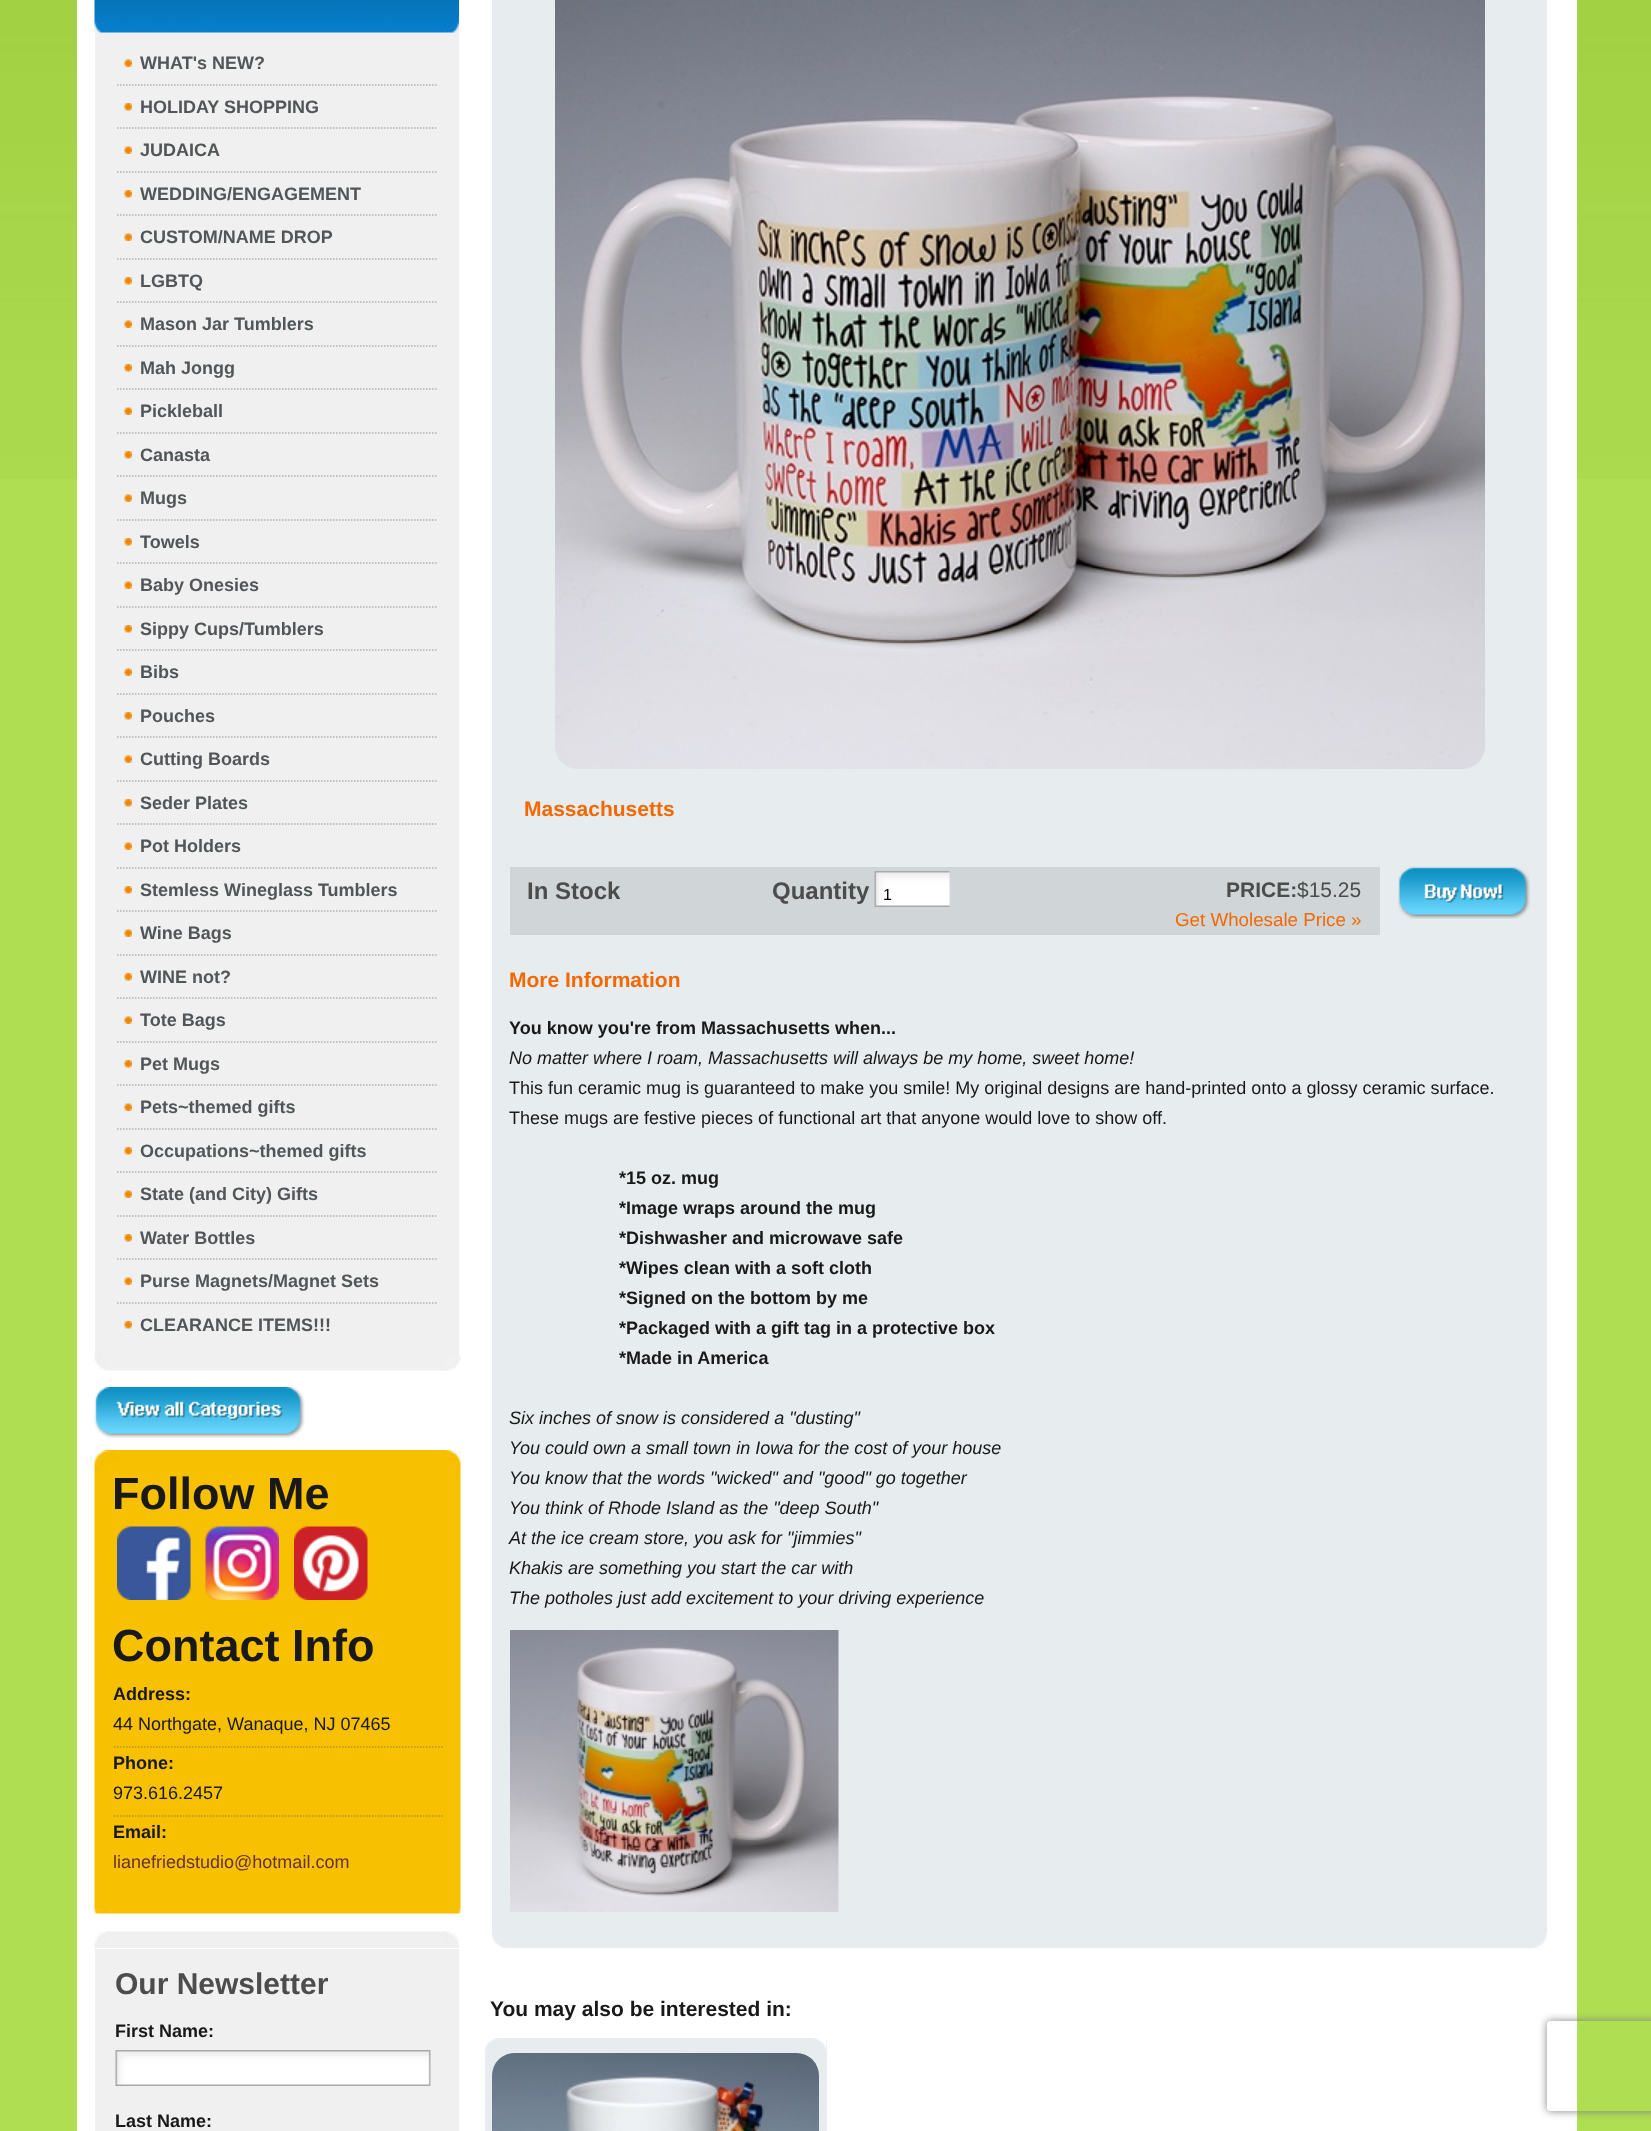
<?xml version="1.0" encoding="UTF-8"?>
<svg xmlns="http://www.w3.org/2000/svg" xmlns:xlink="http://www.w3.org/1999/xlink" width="1651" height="2131">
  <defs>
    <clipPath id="clip1"><path d="M 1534 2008 h 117 v 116 h -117 z m 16 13 h 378 c 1.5 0 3 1.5 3 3 v 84 c 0 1.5 -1.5 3 -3 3 h -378 c -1.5 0 -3 -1.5 -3 -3 v -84 c 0 -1.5 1.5 -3 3 -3 z" clip-rule="evenodd" /></clipPath>
  </defs>
  <rect width="100%" height="100%" fill="#afde53" />
  <image x="0" y="0" width="1651" height="479" xlink:href="image1.png" />
  <rect x="77" width="1500" height="2131" fill="#ffffff" />
  <rect x="95" y="32" width="364" height="1324" fill="#f0f0f0" />
  <image x="94" y="0" width="365" height="33" xlink:href="image2.png" />
  <path d="M 117 85 h 319.5" fill="none" stroke="#b0b0b0" stroke-width="1.5" stroke-dasharray="1.5 1.5" />
  <image x="124" y="59" width="8" height="8" xlink:href="image3.png" />
  <path d="M 117 128 h 319.5" fill="none" stroke="#b0b0b0" stroke-width="1.5" stroke-dasharray="1.5 1.5" />
  <image x="124" y="103" width="8" height="8" xlink:href="image4.png" />
  <path d="M 117 172 h 319.5" fill="none" stroke="#b0b0b0" stroke-width="1.5" stroke-dasharray="1.5 1.5" />
  <image x="124" y="146" width="8" height="8" xlink:href="image3.png" />
  <path d="M 117 215 h 319.5" fill="none" stroke="#b0b0b0" stroke-width="1.5" stroke-dasharray="1.5 1.5" />
  <image x="124" y="190" width="8" height="8" xlink:href="image4.png" />
  <path d="M 117 259 h 319.5" fill="none" stroke="#b0b0b0" stroke-width="1.5" stroke-dasharray="1.5 1.5" />
  <image x="124" y="233" width="8" height="8" xlink:href="image3.png" />
  <path d="M 117 302 h 319.5" fill="none" stroke="#b0b0b0" stroke-width="1.5" stroke-dasharray="1.5 1.5" />
  <image x="124" y="277" width="8" height="8" xlink:href="image4.png" />
  <path d="M 117 346 h 319.5" fill="none" stroke="#b0b0b0" stroke-width="1.5" stroke-dasharray="1.5 1.5" />
  <image x="124" y="320" width="8" height="8" xlink:href="image3.png" />
  <path d="M 117 389 h 319.5" fill="none" stroke="#b0b0b0" stroke-width="1.5" stroke-dasharray="1.5 1.5" />
  <image x="124" y="364" width="8" height="8" xlink:href="image4.png" />
  <path d="M 117 433 h 319.5" fill="none" stroke="#b0b0b0" stroke-width="1.5" stroke-dasharray="1.5 1.5" />
  <image x="124" y="407" width="8" height="8" xlink:href="image3.png" />
  <path d="M 117 476 h 319.5" fill="none" stroke="#b0b0b0" stroke-width="1.5" stroke-dasharray="1.5 1.5" />
  <image x="124" y="451" width="8" height="8" xlink:href="image4.png" />
  <path d="M 117 520 h 319.5" fill="none" stroke="#b0b0b0" stroke-width="1.5" stroke-dasharray="1.5 1.5" />
  <image x="124" y="494" width="8" height="8" xlink:href="image3.png" />
  <path d="M 117 563 h 319.5" fill="none" stroke="#b0b0b0" stroke-width="1.5" stroke-dasharray="1.5 1.5" />
  <image x="124" y="538" width="8" height="8" xlink:href="image4.png" />
  <path d="M 117 607 h 319.5" fill="none" stroke="#b0b0b0" stroke-width="1.5" stroke-dasharray="1.5 1.5" />
  <image x="124" y="581" width="8" height="8" xlink:href="image3.png" />
  <path d="M 117 650 h 319.5" fill="none" stroke="#b0b0b0" stroke-width="1.5" stroke-dasharray="1.5 1.5" />
  <image x="124" y="625" width="8" height="8" xlink:href="image4.png" />
  <path d="M 117 694 h 319.5" fill="none" stroke="#b0b0b0" stroke-width="1.5" stroke-dasharray="1.5 1.5" />
  <image x="124" y="668" width="8" height="8" xlink:href="image3.png" />
  <path d="M 117 737 h 319.5" fill="none" stroke="#b0b0b0" stroke-width="1.5" stroke-dasharray="1.5 1.5" />
  <image x="124" y="712" width="8" height="8" xlink:href="image4.png" />
  <path d="M 117 781 h 319.5" fill="none" stroke="#b0b0b0" stroke-width="1.5" stroke-dasharray="1.5 1.5" />
  <image x="124" y="755" width="8" height="8" xlink:href="image3.png" />
  <path d="M 117 824 h 319.5" fill="none" stroke="#b0b0b0" stroke-width="1.5" stroke-dasharray="1.5 1.5" />
  <image x="124" y="799" width="8" height="8" xlink:href="image4.png" />
  <path d="M 117 868 h 319.5" fill="none" stroke="#b0b0b0" stroke-width="1.5" stroke-dasharray="1.5 1.5" />
  <image x="124" y="842" width="8" height="8" xlink:href="image3.png" />
  <path d="M 117 911 h 319.5" fill="none" stroke="#b0b0b0" stroke-width="1.5" stroke-dasharray="1.5 1.5" />
  <image x="124" y="886" width="8" height="8" xlink:href="image4.png" />
  <path d="M 117 955 h 319.5" fill="none" stroke="#b0b0b0" stroke-width="1.5" stroke-dasharray="1.5 1.5" />
  <image x="124" y="929" width="8" height="8" xlink:href="image3.png" />
  <path d="M 117 998 h 319.5" fill="none" stroke="#b0b0b0" stroke-width="1.5" stroke-dasharray="1.5 1.5" />
  <image x="124" y="973" width="8" height="8" xlink:href="image4.png" />
  <path d="M 117 1042 h 319.5" fill="none" stroke="#b0b0b0" stroke-width="1.5" stroke-dasharray="1.5 1.5" />
  <image x="124" y="1016" width="8" height="8" xlink:href="image3.png" />
  <path d="M 117 1085 h 319.5" fill="none" stroke="#b0b0b0" stroke-width="1.5" stroke-dasharray="1.5 1.5" />
  <image x="124" y="1060" width="8" height="8" xlink:href="image4.png" />
  <path d="M 117 1129 h 319.5" fill="none" stroke="#b0b0b0" stroke-width="1.5" stroke-dasharray="1.5 1.5" />
  <image x="124" y="1103" width="8" height="8" xlink:href="image3.png" />
  <path d="M 117 1172 h 319.5" fill="none" stroke="#b0b0b0" stroke-width="1.5" stroke-dasharray="1.5 1.5" />
  <image x="124" y="1147" width="8" height="8" xlink:href="image4.png" />
  <path d="M 117 1216 h 319.5" fill="none" stroke="#b0b0b0" stroke-width="1.5" stroke-dasharray="1.5 1.5" />
  <image x="124" y="1190" width="8" height="8" xlink:href="image3.png" />
  <path d="M 117 1259 h 319.5" fill="none" stroke="#b0b0b0" stroke-width="1.5" stroke-dasharray="1.5 1.5" />
  <image x="124" y="1234" width="8" height="8" xlink:href="image4.png" />
  <path d="M 117 1303 h 319.5" fill="none" stroke="#b0b0b0" stroke-width="1.5" stroke-dasharray="1.5 1.5" />
  <image x="124" y="1277" width="8" height="8" xlink:href="image3.png" />
  <image x="124" y="1321" width="8" height="8" xlink:href="image4.png" />
  <image x="94" y="1355" width="367" height="16" xlink:href="image5.png" />
  <image x="94" y="1387" width="211" height="51" xlink:href="image6.png" />
  <image x="94" y="1450" width="367" height="464" xlink:href="image7.png" />
  <image x="117" y="1526" width="74" height="74" xlink:href="image8.png" />
  <image x="205" y="1526" width="74" height="74" xlink:href="image9.png" />
  <image x="294" y="1526" width="74" height="74" xlink:href="image10.png" />
  <path d="M 114 1747 h 330" fill="none" stroke="#b4962c" stroke-width="1.5" stroke-dasharray="1.5 1.5" />
  <path d="M 114 1816 h 330" fill="none" stroke="#b4962c" stroke-width="1.5" stroke-dasharray="1.5 1.5" />
  <image x="94" y="1931" width="365" height="17" xlink:href="image11.png" />
  <rect x="95" y="1949" width="364" height="182" fill="#f0f0f0" />
  <image x="115" y="2050" width="316" height="36" xlink:href="image12.png" />
  <rect x="492" width="1055" height="1934" fill="#e7ecee" />
  <image x="555" y="0" width="930" height="769" xlink:href="image13.png" />
  <rect x="510" y="867" width="870" height="68" fill="#d0d5d7" />
  <image x="874" y="871" width="76" height="36" xlink:href="image14.png" />
  <image x="1398" y="866" width="132" height="53" xlink:href="image15.png" />
  <image x="510" y="1630" width="329" height="282" xlink:href="image16.png" />
  <image x="492" y="1934" width="1055" height="14" xlink:href="image17.png" />
  <rect x="485" y="2039" width="342" height="92" fill="#e7ecee" />
  <image x="484" y="2038" width="343" height="12" xlink:href="image18.png" />
  <image x="492" y="2053" width="327" height="78" xlink:href="image19.png" />
  <g clip-path="url(#clip1)">
    <rect x="1547" y="2021" width="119" height="90" rx="3" fill="#808080" filter="blur(4px)" />
  </g>
  <text x="140" y="69" style="font-family: Liberation Sans; font-size: 18px; font-weight: bold; fill: #515658">WHAT's NEW?</text>
  <text x="140" y="113" style="font-family: Liberation Sans; font-size: 18px; font-weight: bold; fill: #515658">HOLIDAY SHOPPING</text>
  <text x="140" y="156" style="font-family: Liberation Sans; font-size: 18px; font-weight: bold; fill: #515658">JUDAICA</text>
  <text x="140" y="200" style="font-family: Liberation Sans; font-size: 18px; font-weight: bold; fill: #515658">WEDDING/ENGAGEMENT</text>
  <text x="140" y="243" style="font-family: Liberation Sans; font-size: 18px; font-weight: bold; fill: #515658">CUSTOM/NAME DROP</text>
  <text x="140" y="287" style="font-family: Liberation Sans; font-size: 18px; font-weight: bold; fill: #515658">LGBTQ</text>
  <text x="140" y="330" style="font-family: Liberation Sans; font-size: 18px; font-weight: bold; fill: #515658">Mason Jar Tumblers</text>
  <text x="140" y="374" style="font-family: Liberation Sans; font-size: 18px; font-weight: bold; fill: #515658">Mah Jongg</text>
  <text x="140" y="417" style="font-family: Liberation Sans; font-size: 18px; font-weight: bold; fill: #515658">Pickleball</text>
  <text x="140" y="461" style="font-family: Liberation Sans; font-size: 18px; font-weight: bold; fill: #515658">Canasta</text>
  <text x="140" y="504" style="font-family: Liberation Sans; font-size: 18px; font-weight: bold; fill: #515658">Mugs</text>
  <text x="140" y="548" style="font-family: Liberation Sans; font-size: 18px; font-weight: bold; fill: #515658">Towels</text>
  <text x="140" y="591" style="font-family: Liberation Sans; font-size: 18px; font-weight: bold; fill: #515658">Baby Onesies</text>
  <text x="140" y="635" style="font-family: Liberation Sans; font-size: 18px; font-weight: bold; fill: #515658">Sippy Cups/Tumblers</text>
  <text x="140" y="678" style="font-family: Liberation Sans; font-size: 18px; font-weight: bold; fill: #515658">Bibs</text>
  <text x="140" y="722" style="font-family: Liberation Sans; font-size: 18px; font-weight: bold; fill: #515658">Pouches</text>
  <text x="140" y="765" style="font-family: Liberation Sans; font-size: 18px; font-weight: bold; fill: #515658">Cutting Boards</text>
  <text x="140" y="809" style="font-family: Liberation Sans; font-size: 18px; font-weight: bold; fill: #515658">Seder Plates</text>
  <text x="140" y="852" style="font-family: Liberation Sans; font-size: 18px; font-weight: bold; fill: #515658">Pot Holders</text>
  <text x="140" y="896" style="font-family: Liberation Sans; font-size: 18px; font-weight: bold; fill: #515658">Stemless Wineglass Tumblers</text>
  <text x="140" y="939" style="font-family: Liberation Sans; font-size: 18px; font-weight: bold; fill: #515658">Wine Bags</text>
  <text x="140" y="983" style="font-family: Liberation Sans; font-size: 18px; font-weight: bold; fill: #515658">WINE not?</text>
  <text x="140" y="1026" style="font-family: Liberation Sans; font-size: 18px; font-weight: bold; fill: #515658">Tote Bags</text>
  <text x="140" y="1070" style="font-family: Liberation Sans; font-size: 18px; font-weight: bold; fill: #515658">Pet Mugs</text>
  <text x="140" y="1113" style="font-family: Liberation Sans; font-size: 18px; font-weight: bold; fill: #515658">Pets~themed gifts</text>
  <text x="140" y="1157" style="font-family: Liberation Sans; font-size: 18px; font-weight: bold; fill: #515658">Occupations~themed gifts</text>
  <text x="140" y="1200" style="font-family: Liberation Sans; font-size: 18px; font-weight: bold; fill: #515658">State (and City) Gifts</text>
  <text x="140" y="1244" style="font-family: Liberation Sans; font-size: 18px; font-weight: bold; fill: #515658">Water Bottles</text>
  <text x="140" y="1287" style="font-family: Liberation Sans; font-size: 18px; font-weight: bold; fill: #515658">Purse Magnets/Magnet Sets</text>
  <text x="140" y="1331" style="font-family: Liberation Sans; font-size: 18px; font-weight: bold; fill: #515658">CLEARANCE ITEMS!!!</text>
  <text x="112" y="1509" style="font-family: Liberation Sans; font-size: 45px; font-weight: bold; fill: #191919">Follow Me</text>
  <text x="112" y="1661" style="font-family: Liberation Sans; font-size: 45px; font-weight: bold; fill: #191919">Contact Info</text>
  <text x="113" y="1700" style="font-family: Liberation Sans; font-size: 18px; font-weight: bold; fill: #191919">Address:</text>
  <text x="113" y="1730" style="font-family: Liberation Sans; font-size: 18px; fill: #191919">44 Northgate, Wanaque, NJ 07465</text>
  <text x="113" y="1769" style="font-family: Liberation Sans; font-size: 18px; font-weight: bold; fill: #191919">Phone:</text>
  <text x="113" y="1799" style="font-family: Liberation Sans; font-size: 18px; fill: #191919">973.616.2457</text>
  <text x="113" y="1838" style="font-family: Liberation Sans; font-size: 18px; font-weight: bold; fill: #191919">Email:</text>
  <text x="113" y="1868" style="font-family: Liberation Sans; font-size: 18px; fill: #663333">lianefriedstudio@hotmail.com</text>
  <text x="115" y="1994" style="font-family: Liberation Sans; font-size: 30px; font-weight: bold; fill: #4c4c4c">Our Newsletter</text>
  <text x="115" y="2037" style="font-family: Liberation Sans; font-size: 18px; font-weight: bold; fill: #191919">First Name:</text>
  <text x="115" y="2127" style="font-family: Liberation Sans; font-size: 18px; font-weight: bold; fill: #191919">Last Name:</text>
  <text x="524" y="816" style="font-family: Liberation Sans; font-size: 21px; font-weight: bold; fill: #f46801">Massachusetts</text>
  <text x="527" y="899" style="font-family: Liberation Sans; font-size: 24px; font-weight: bold; fill: #4c4c4c">In Stock</text>
  <text x="772" y="899" style="font-family: Liberation Sans; font-size: 24px; font-weight: bold; fill: #4c4c4c">Quantity</text>
  <text x="883" y="900" style="font-family: Liberation Sans; font-size: 16px; fill: #000000">1</text>
  <text x="1226" y="897" style="font-family: Liberation Sans; font-size: 21px; font-weight: bold; fill: #4c4c4c">PRICE:</text>
  <text x="1297" y="897" style="font-family: Liberation Sans; font-size: 21px; fill: #4c4c4c">$15.25</text>
  <text x="1175" y="926" style="font-family: Liberation Sans; font-size: 18.75px; fill: #f46801">Get Wholesale Price »</text>
  <text x="509" y="987" style="font-family: Liberation Sans; font-size: 21px; font-weight: bold; fill: #f46801">More Information</text>
  <text x="509" y="1034" style="font-family: Liberation Sans; font-size: 18px; font-weight: bold; fill: #191919">You know you're from Massachusetts when...</text>
  <text x="509" y="1064" style="font-family: Liberation Sans; font-size: 18px; font-style: italic; fill: #191919">No matter where I roam, Massachusetts will always be my home, sweet home!</text>
  <text x="509" y="1094" style="font-family: Liberation Sans; font-size: 18px; fill: #191919">This fun ceramic mug is guaranteed to make you smile! My original designs are hand-printed onto a glossy ceramic surface.</text>
  <text x="509" y="1124" style="font-family: Liberation Sans; font-size: 18px; fill: #191919">These mugs are festive pieces of functional art that anyone would love to show off.</text>
  <text x="619" y="1184" style="font-family: Liberation Sans; font-size: 18px; font-weight: bold; fill: #191919">*15 oz. mug</text>
  <text x="619" y="1214" style="font-family: Liberation Sans; font-size: 18px; font-weight: bold; fill: #191919">*Image wraps around the mug</text>
  <text x="619" y="1244" style="font-family: Liberation Sans; font-size: 18px; font-weight: bold; fill: #191919">*Dishwasher and microwave safe</text>
  <text x="619" y="1274" style="font-family: Liberation Sans; font-size: 18px; font-weight: bold; fill: #191919">*Wipes clean with a soft cloth</text>
  <text x="619" y="1304" style="font-family: Liberation Sans; font-size: 18px; font-weight: bold; fill: #191919">*Signed on the bottom by me</text>
  <text x="619" y="1334" style="font-family: Liberation Sans; font-size: 18px; font-weight: bold; fill: #191919">*Packaged with a gift tag in a protective box</text>
  <text x="619" y="1364" style="font-family: Liberation Sans; font-size: 18px; font-weight: bold; fill: #191919">*Made in America</text>
  <text x="509" y="1424" style="font-family: Liberation Sans; font-size: 18px; font-style: italic; fill: #191919">Six inches of snow is considered a "dusting"</text>
  <text x="509" y="1454" style="font-family: Liberation Sans; font-size: 18px; font-style: italic; fill: #191919">You could own a small town in Iowa for the cost of your house</text>
  <text x="509" y="1484" style="font-family: Liberation Sans; font-size: 18px; font-style: italic; fill: #191919">You know that the words "wicked" and "good" go together</text>
  <text x="509" y="1514" style="font-family: Liberation Sans; font-size: 18px; font-style: italic; fill: #191919">You think of Rhode Island as the "deep South"</text>
  <text x="509" y="1544" style="font-family: Liberation Sans; font-size: 18px; font-style: italic; fill: #191919">At the ice cream store, you ask for "jimmies"</text>
  <text x="509" y="1574" style="font-family: Liberation Sans; font-size: 18px; font-style: italic; fill: #191919">Khakis are something you start the car with</text>
  <text x="509" y="1604" style="font-family: Liberation Sans; font-size: 18px; font-style: italic; fill: #191919">The potholes just add excitement to your driving experience</text>
  <text x="490" y="2016" style="font-family: Liberation Sans; font-size: 21px; font-weight: bold; fill: #191919">You may also be interested in:</text>
</svg>
